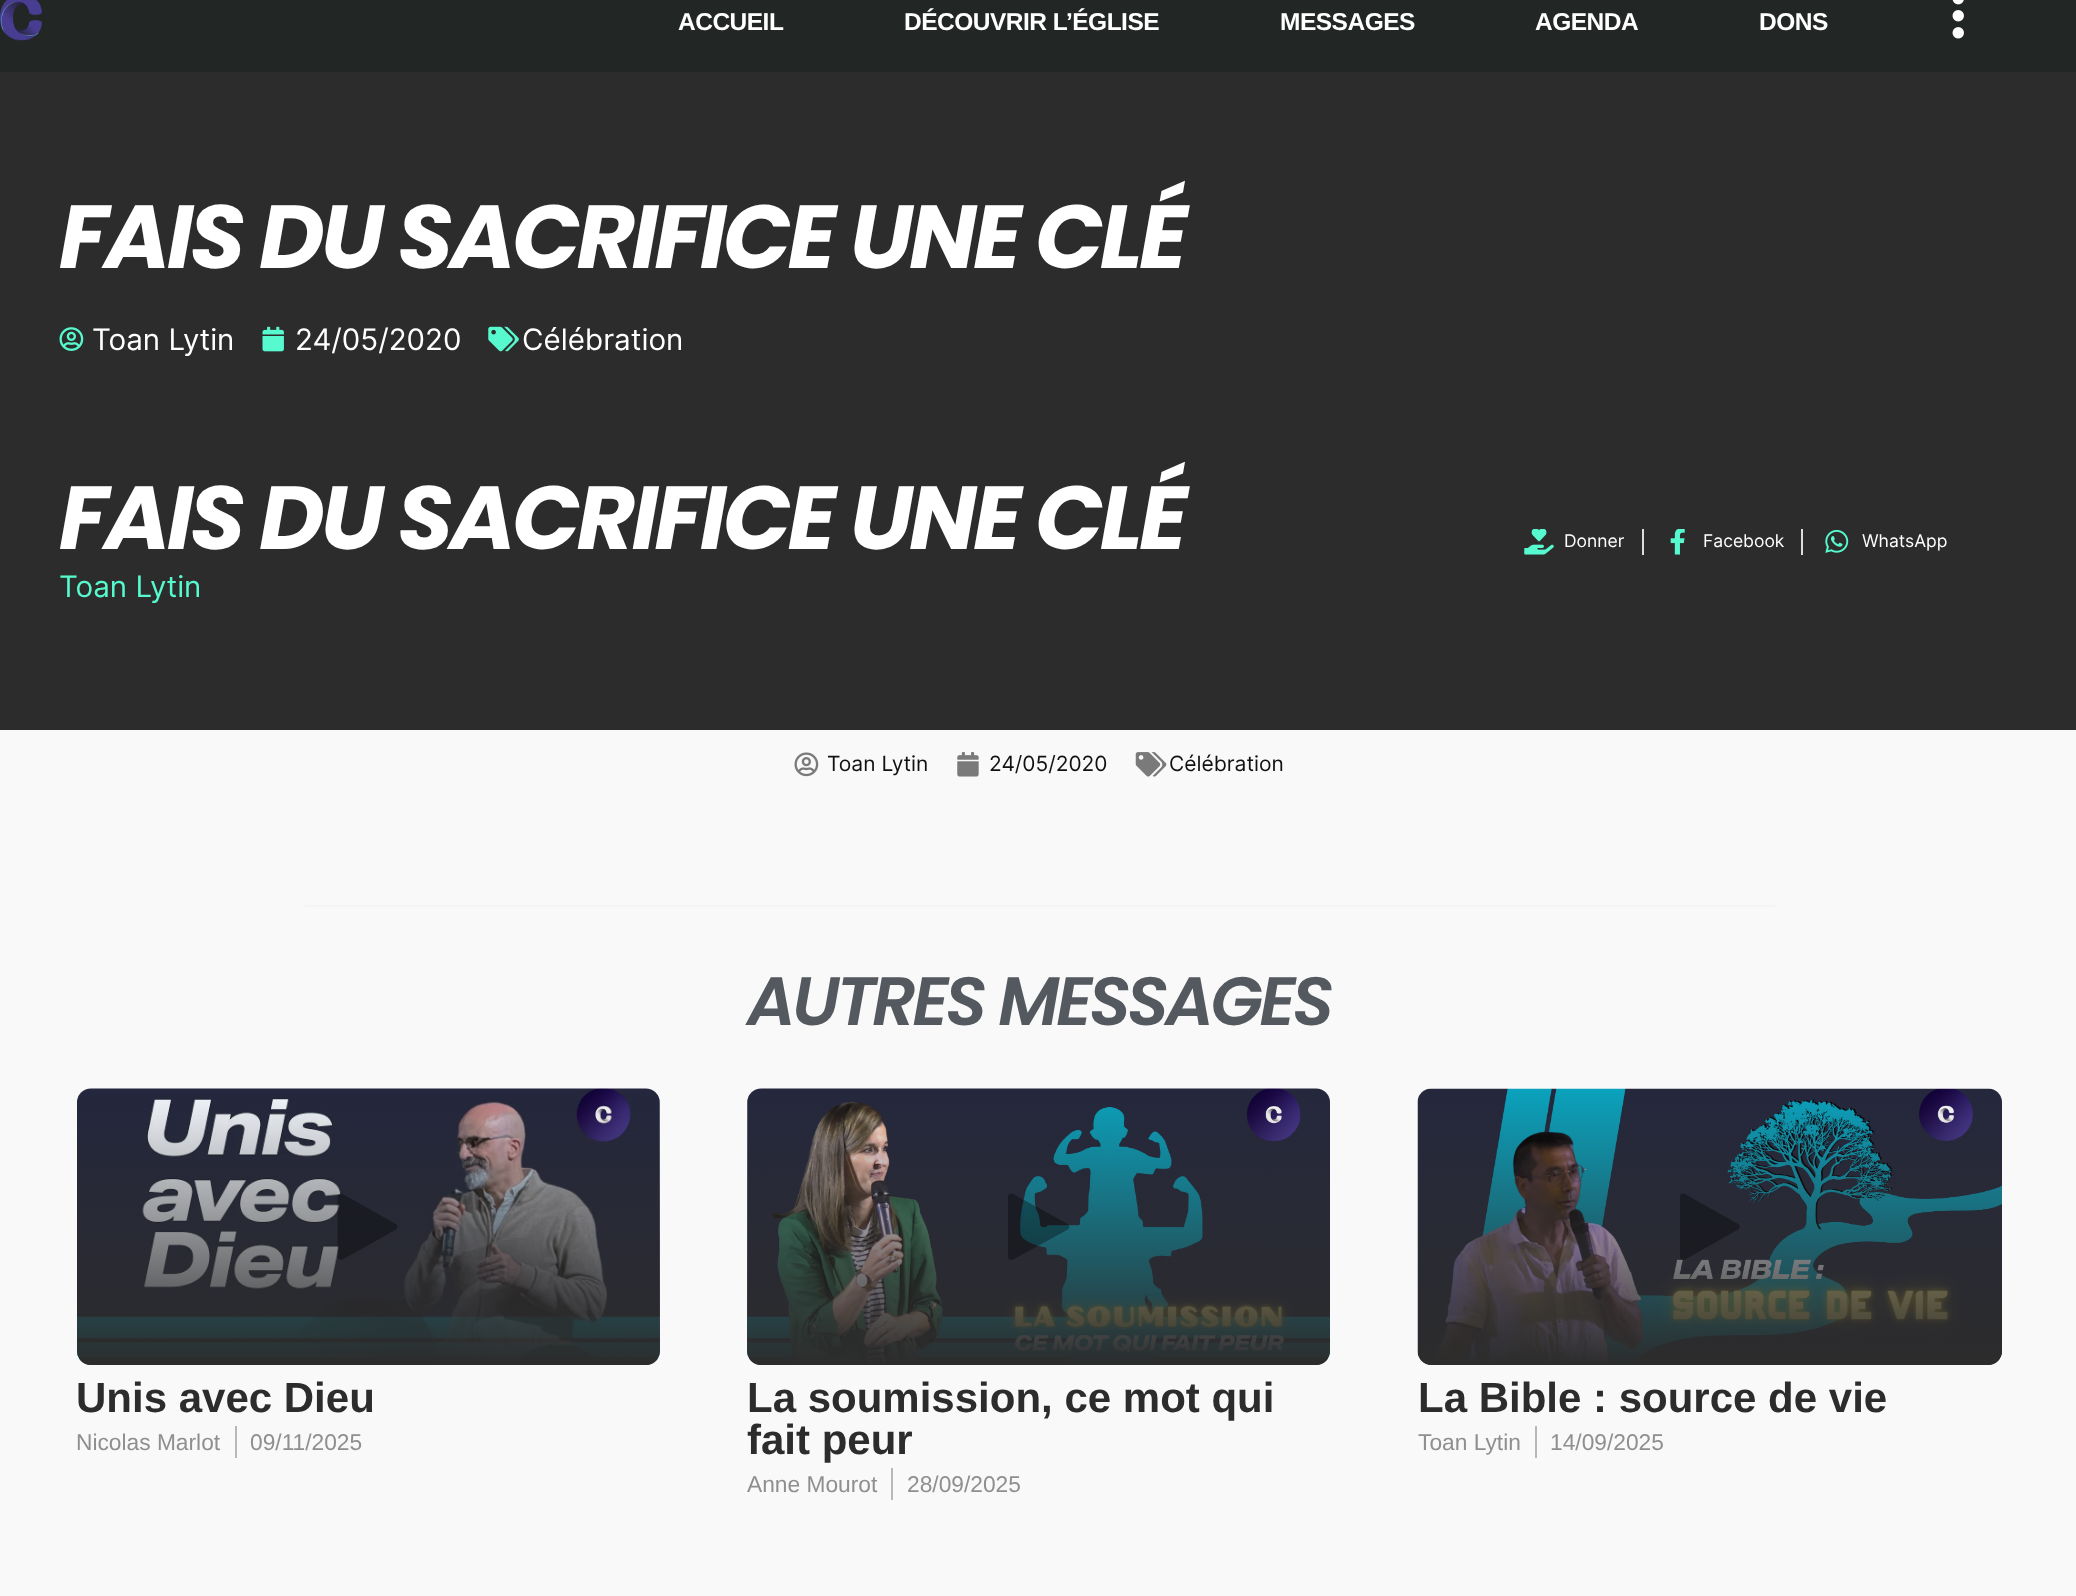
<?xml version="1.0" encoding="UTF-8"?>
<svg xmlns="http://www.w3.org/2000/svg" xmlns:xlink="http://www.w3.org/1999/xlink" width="2076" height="1596">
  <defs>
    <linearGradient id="g1" gradientUnits="userSpaceOnUse" x1="368" y1="1089" x2="368" y2="1365"><stop offset="0" stop-color="#2c2c2c" stop-opacity="0" /><stop offset="1" stop-color="#2c2c2c" /></linearGradient>
    <linearGradient id="g2" gradientUnits="userSpaceOnUse" x1="1039" y1="1089" x2="1039" y2="1365"><stop offset="0" stop-color="#2c2c2c" stop-opacity="0" /><stop offset="1" stop-color="#2c2c2c" /></linearGradient>
    <linearGradient id="g3" gradientUnits="userSpaceOnUse" x1="1710" y1="1089" x2="1710" y2="1365"><stop offset="0" stop-color="#2c2c2c" stop-opacity="0" /><stop offset="1" stop-color="#2c2c2c" /></linearGradient>
  </defs>
  <rect width="100%" height="100%" fill="#f9f9f9" />
  <rect width="2076" height="72" fill="#222625" />
  <image x="0" y="0" width="42" height="41" xlink:href="image1.png" />
  <image x="1952" y="0" width="12" height="39" xlink:href="image2.png" />
  <rect y="72" width="2076" height="658" fill="#2c2c2c" />
  <image x="59" y="327" width="25" height="24" xlink:href="image3.png" />
  <image x="262" y="326" width="22" height="26" xlink:href="image4.png" />
  <image x="488" y="326" width="31" height="26" xlink:href="image5.png" />
  <image x="1524" y="529" width="30" height="26" xlink:href="image6.png" />
  <rect x="1642" y="529" width="2" height="26" fill="#dddddd" />
  <image x="1670" y="529" width="15" height="26" xlink:href="image7.png" />
  <rect x="1801" y="529" width="2" height="26" fill="#dddddd" />
  <image x="1825" y="529" width="24" height="24" xlink:href="image8.png" />
  <image x="794" y="752" width="25" height="25" xlink:href="image9.png" />
  <image x="957" y="752" width="22" height="25" xlink:href="image10.png" />
  <image x="1135" y="752" width="32" height="25" xlink:href="image11.png" />
  <rect x="305" y="905" width="1470" height="2" fill="#f4f4f4" />
  <image x="76" y="1088" width="584" height="277" xlink:href="image12.png" />
  <rect x="77" y="1089" width="583" height="276" rx="14" fill="url(#g1)" />
  <image x="337" y="1193" width="61" height="67" xlink:href="image13.png" />
  <rect x="235" y="1426" width="2" height="32" fill="#b8b8b8" />
  <image x="747" y="1088" width="583" height="277" xlink:href="image14.png" />
  <rect x="747" y="1089" width="583" height="276" rx="14" fill="url(#g2)" />
  <image x="1008" y="1193" width="62" height="67" xlink:href="image15.png" />
  <rect x="891" y="1468" width="2" height="32" fill="#b8b8b8" />
  <image x="1417" y="1088" width="585" height="277" xlink:href="image16.png" />
  <rect x="1418" y="1089" width="584" height="276" rx="14" fill="url(#g3)" />
  <image x="1680" y="1193" width="60" height="67" xlink:href="image17.png" />
  <rect x="1535" y="1426" width="2" height="32" fill="#b8b8b8" />
  <text x="678" y="30" style="font-family: Liberation Sans; font-size: 24.5px; font-weight: bold; letter-spacing: -0.5px; fill: #ffffff">ACCUEIL</text>
  <text x="904" y="30" style="font-family: Liberation Sans; font-size: 24.5px; font-weight: bold; letter-spacing: -0.5px; fill: #ffffff">DÉCOUVRIR L’ÉGLISE</text>
  <text x="1280" y="30" style="font-family: Liberation Sans; font-size: 24.5px; font-weight: bold; letter-spacing: -0.5px; fill: #ffffff">MESSAGES</text>
  <text x="1535" y="30" style="font-family: Liberation Sans; font-size: 24.5px; font-weight: bold; letter-spacing: -0.5px; fill: #ffffff">AGENDA</text>
  <text x="1759" y="30" style="font-family: Liberation Sans; font-size: 24.5px; font-weight: bold; letter-spacing: -0.5px; fill: #ffffff">DONS</text>
  <text x="59" y="268" style="font-family: Poppins; font-size: 89.5px; font-weight: bold; font-style: italic; letter-spacing: -3.5px; fill: #ffffff">FAIS DU SACRIFICE UNE CLÉ</text>
  <text x="92" y="350" style="font-family: Inter; font-size: 29.5px; fill: #ffffff">Toan Lytin</text>
  <text x="295" y="350" style="font-family: Inter; font-size: 29.5px; fill: #ffffff">24/05/2020</text>
  <text x="522" y="350" style="font-family: Inter; font-size: 29.5px; fill: #ffffff">Célébration</text>
  <text x="59" y="549" style="font-family: Poppins; font-size: 89.5px; font-weight: bold; font-style: italic; letter-spacing: -3.5px; fill: #ffffff">FAIS DU SACRIFICE UNE CLÉ</text>
  <text x="59" y="597" style="font-family: Inter; font-size: 29.5px; fill: #56face">Toan Lytin</text>
  <text x="1564" y="547" style="font-family: Inter; font-size: 17.5px; fill: #ffffff">Donner</text>
  <text x="1703" y="547" style="font-family: Inter; font-size: 17.5px; fill: #ffffff">Facebook</text>
  <text x="1862" y="547" style="font-family: Inter; font-size: 17.5px; fill: #ffffff">WhatsApp</text>
  <text x="827" y="771" style="font-family: Inter; font-size: 21px; fill: #111111">Toan Lytin</text>
  <text x="989" y="771" style="font-family: Inter; font-size: 21px; fill: #111111">24/05/2020</text>
  <text x="1169" y="771" style="font-family: Inter; font-size: 21px; fill: #111111">Célébration</text>
  <text x="747" y="1025" style="font-family: Poppins; font-size: 68.25px; font-weight: 600; font-style: italic; letter-spacing: -3.5px; fill: #54595f">AUTRES MESSAGES</text>
  <text x="76" y="1412" style="font-family: Liberation Sans; font-size: 42px; font-weight: bold; fill: #2c2c2c">Unis avec Dieu</text>
  <text x="76" y="1450" style="font-family: Liberation Sans; font-size: 22.75px; fill: #8f8f8f">Nicolas Marlot</text>
  <text x="250" y="1450" style="font-family: Liberation Sans; font-size: 22.75px; fill: #8f8f8f">09/11/2025</text>
  <text x="747" y="1412" style="font-family: Liberation Sans; font-size: 42px; font-weight: bold; fill: #2c2c2c">La soumission, ce mot qui</text>
  <text x="747" y="1454" style="font-family: Liberation Sans; font-size: 42px; font-weight: bold; fill: #2c2c2c">fait peur</text>
  <text x="747" y="1492" style="font-family: Liberation Sans; font-size: 22.75px; fill: #8f8f8f">Anne Mourot</text>
  <text x="907" y="1492" style="font-family: Liberation Sans; font-size: 22.75px; fill: #8f8f8f">28/09/2025</text>
  <text x="1418" y="1412" style="font-family: Liberation Sans; font-size: 42px; font-weight: bold; fill: #2c2c2c">La Bible : source de vie</text>
  <text x="1418" y="1450" style="font-family: Liberation Sans; font-size: 22.75px; fill: #8f8f8f">Toan Lytin</text>
  <text x="1550" y="1450" style="font-family: Liberation Sans; font-size: 22.75px; fill: #8f8f8f">14/09/2025</text>
</svg>
